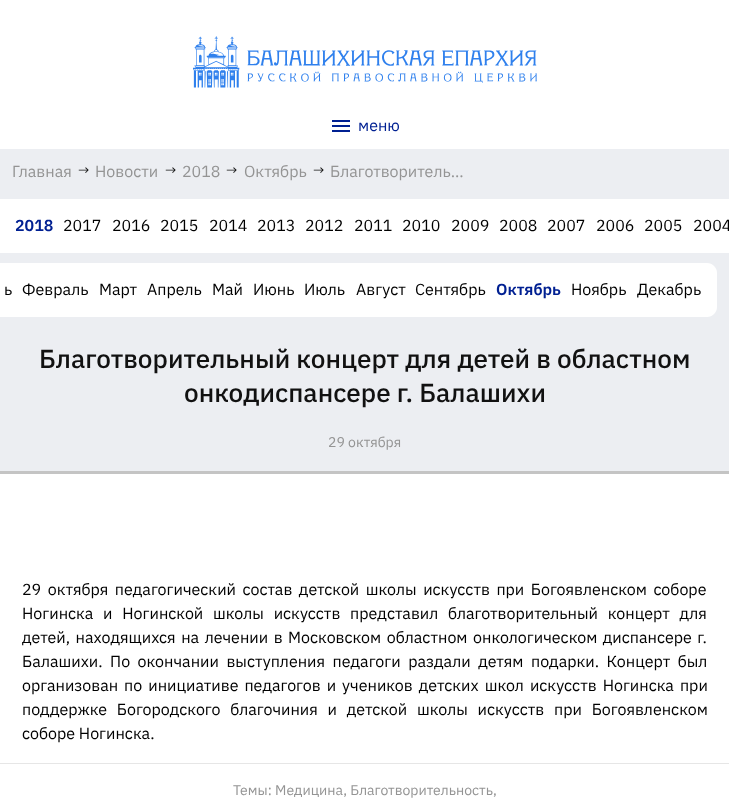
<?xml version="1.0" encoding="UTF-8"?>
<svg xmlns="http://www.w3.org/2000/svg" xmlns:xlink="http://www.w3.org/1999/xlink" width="729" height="808">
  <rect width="100%" height="100%" fill="#eceef2" />
  <rect width="729" height="149" fill="#ffffff" />
  <image x="193" y="36" width="344" height="52" xlink:href="image1.png" />
  <image x="332" y="120" width="18" height="12" xlink:href="image2.png" />
  <rect y="199" width="729" height="54" fill="#ffffff" />
  <rect y="263" width="632" height="54" fill="#ffffff" />
  <path d="M 632 263 h 75 c 5.5 0 10 4.5 10 10 v 34 c 0 5.5 -4.5 10 -10 10 h -75 z" fill="#ffffff" />
  <rect y="474" width="729" height="334" fill="#ffffff" />
  <rect y="471" width="729" height="3" fill="#c4c4c4" />
  <rect y="763" width="729" height="1" fill="#e6e6e6" />
  <text x="358" y="131" style="font-family: IBM Plex Sans; font-size: 16px; fill: #002092">меню</text>
  <text x="12" y="177" style="font-family: IBM Plex Sans; font-size: 16px; fill: #949494">Главная</text>
  <text x="78" y="175" style="font-family: IBM Plex Sans; font-size: 14px; fill: #111111">→</text>
  <text x="95" y="177" style="font-family: IBM Plex Sans; font-size: 16px; fill: #949494">Новости</text>
  <text x="165" y="175" style="font-family: IBM Plex Sans; font-size: 14px; fill: #111111">→</text>
  <text x="182" y="177" style="font-family: IBM Plex Sans; font-size: 16px; fill: #949494">2018</text>
  <text x="226" y="175" style="font-family: IBM Plex Sans; font-size: 14px; fill: #111111">→</text>
  <text x="244" y="177" style="font-family: IBM Plex Sans; font-size: 16px; fill: #949494">Октябрь</text>
  <text x="313" y="175" style="font-family: IBM Plex Sans; font-size: 14px; fill: #111111">→</text>
  <text x="330" y="177" style="font-family: IBM Plex Sans; font-size: 16px; fill: #949494">Благотворитель…</text>
  <text x="15" y="231" style="font-family: IBM Plex Sans; font-size: 16px; font-weight: 600; fill: #002092">2018</text>
  <text x="63" y="231" style="font-family: IBM Plex Sans; font-size: 16px; fill: #000000">2017</text>
  <text x="112" y="231" style="font-family: IBM Plex Sans; font-size: 16px; fill: #000000">2016</text>
  <text x="160" y="231" style="font-family: IBM Plex Sans; font-size: 16px; fill: #000000">2015</text>
  <text x="209" y="231" style="font-family: IBM Plex Sans; font-size: 16px; fill: #000000">2014</text>
  <text x="257" y="231" style="font-family: IBM Plex Sans; font-size: 16px; fill: #000000">2013</text>
  <text x="305" y="231" style="font-family: IBM Plex Sans; font-size: 16px; fill: #000000">2012</text>
  <text x="354" y="231" style="font-family: IBM Plex Sans; font-size: 16px; fill: #000000">2011</text>
  <text x="402" y="231" style="font-family: IBM Plex Sans; font-size: 16px; fill: #000000">2010</text>
  <text x="451" y="231" style="font-family: IBM Plex Sans; font-size: 16px; fill: #000000">2009</text>
  <text x="499" y="231" style="font-family: IBM Plex Sans; font-size: 16px; fill: #000000">2008</text>
  <text x="547" y="231" style="font-family: IBM Plex Sans; font-size: 16px; fill: #000000">2007</text>
  <text x="596" y="231" style="font-family: IBM Plex Sans; font-size: 16px; fill: #000000">2006</text>
  <text x="644" y="231" style="font-family: IBM Plex Sans; font-size: 16px; fill: #000000">2005</text>
  <text x="693" y="231" style="font-family: IBM Plex Sans; font-size: 16px; fill: #000000">2004</text>
  <text x="4" y="295" style="font-family: IBM Plex Sans; font-size: 16px; fill: #000000">ь</text>
  <text x="22" y="295" style="font-family: IBM Plex Sans; font-size: 16px; fill: #000000">Февраль</text>
  <text x="99" y="295" style="font-family: IBM Plex Sans; font-size: 16px; fill: #000000">Март</text>
  <text x="147" y="295" style="font-family: IBM Plex Sans; font-size: 16px; fill: #000000">Апрель</text>
  <text x="212" y="295" style="font-family: IBM Plex Sans; font-size: 16px; fill: #000000">Май</text>
  <text x="253" y="295" style="font-family: IBM Plex Sans; font-size: 16px; fill: #000000">Июнь</text>
  <text x="304" y="295" style="font-family: IBM Plex Sans; font-size: 16px; fill: #000000">Июль</text>
  <text x="356" y="295" style="font-family: IBM Plex Sans; font-size: 16px; fill: #000000">Август</text>
  <text x="415" y="295" style="font-family: IBM Plex Sans; font-size: 16px; fill: #000000">Сентябрь</text>
  <text x="496" y="295" style="font-family: IBM Plex Sans; font-size: 16px; font-weight: 600; fill: #002092">Октябрь</text>
  <text x="571" y="295" style="font-family: IBM Plex Sans; font-size: 16px; fill: #000000">Ноябрь</text>
  <text x="637" y="295" style="font-family: IBM Plex Sans; font-size: 16px; fill: #000000">Декабрь</text>
  <text x="39" y="368" style="font-family: IBM Plex Sans; font-size: 26px; font-weight: 500; fill: #111111">Благотворительный концерт для детей в областном</text>
  <text x="184" y="402" style="font-family: IBM Plex Sans; font-size: 26px; font-weight: 500; fill: #111111">онкодиспансере г. Балашихи</text>
  <text x="328" y="447" style="font-family: IBM Plex Sans; font-size: 14px; fill: #949494">29 октября</text>
  <text x="22" y="595" word-spacing="2.75" style="font-family: IBM Plex Sans; font-size: 16px; fill: #000000">29 октября педагогический состав детской школы искусств при Богоявленском соборе</text>
  <text x="22" y="619" word-spacing="6" style="font-family: IBM Plex Sans; font-size: 16px; fill: #000000">Ногинска и Ногинской школы искусств представил благотворительный концерт для</text>
  <text x="22" y="643" word-spacing="1.75" style="font-family: IBM Plex Sans; font-size: 16px; fill: #000000">детей, находящихся на лечении в Московском областном онкологическом диспансере г.</text>
  <text x="22" y="667" word-spacing="3.75" style="font-family: IBM Plex Sans; font-size: 16px; fill: #000000">Балашихи. По окончании выступления педагоги раздали детям подарки. Концерт был</text>
  <text x="22" y="691" word-spacing="2.25" style="font-family: IBM Plex Sans; font-size: 16px; fill: #000000">организован по инициативе педагогов и учеников детских школ искусств Ногинска при</text>
  <text x="22" y="715" word-spacing="6" style="font-family: IBM Plex Sans; font-size: 16px; fill: #000000">поддержке Богородского благочиния и детской школы искусств при Богоявленском</text>
  <text x="22" y="739" style="font-family: IBM Plex Sans; font-size: 16px; fill: #000000">соборе Ногинска.</text>
  <text x="233" y="795" style="font-family: IBM Plex Sans; font-size: 14px; fill: #949494">Темы: Медицина, Благотворительность,</text>
</svg>
